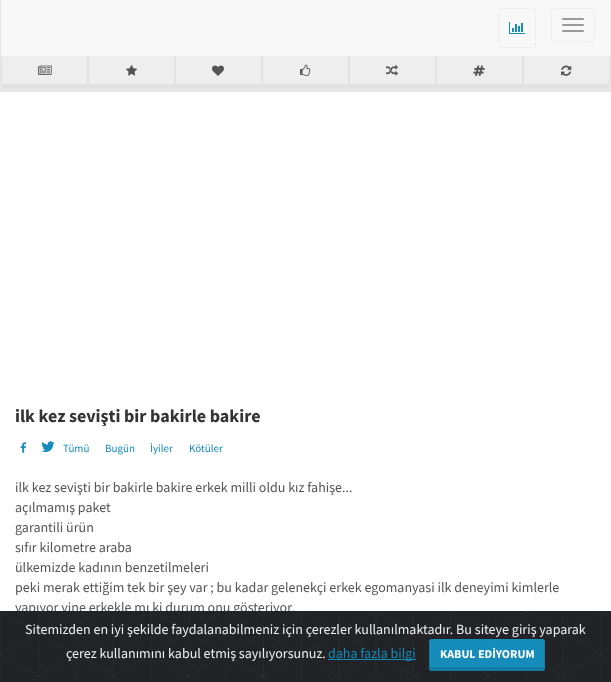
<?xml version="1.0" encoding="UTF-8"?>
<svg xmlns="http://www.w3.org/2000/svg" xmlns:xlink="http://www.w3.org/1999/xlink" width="611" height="682">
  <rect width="100%" height="100%" fill="#ffffff" />
  <image x="20" y="442" width="6" height="11" xlink:href="image1.png" />
  <image x="41" y="441" width="14" height="11" xlink:href="image2.png" />
  <rect x="1" width="609" height="88" fill="#f8f8f8" />
  <rect x="610" width="1" height="92" fill="#e7e7e7" />
  <rect y="88" width="611" height="4" fill="#e7e7e7" />
  <rect width="1" height="92" fill="#e7e7e7" />
  <rect x="498.5" y="8.5" width="37" height="39" rx="3.5" fill="none" stroke="#eeeeee" />
  <image x="509" y="22" width="16" height="12" xlink:href="image3.png" />
  <rect x="551.5" y="8.5" width="43" height="33" rx="3.5" fill="none" stroke="#eeeeee" />
  <rect x="562" y="18" width="22" height="2" rx="1" fill="#999999" />
  <rect x="562" y="24" width="22" height="2" rx="1" fill="#999999" />
  <rect x="562" y="30" width="22" height="2" rx="1" fill="#999999" />
  <path d="M 3 56 h 84 v 28 h -85 v -26 c 0 -1 0 -2 1 -2 z" fill="#eeeeee" />
  <rect x="87" y="56" width="1" height="32" fill="#e2e2e2" />
  <rect x="2" y="84" width="86" height="4" fill="#e2e2e2" />
  <rect x="1" y="57" width="1" height="30" fill="#e2e2e2" />
  <image x="38" y="65" width="14" height="10" xlink:href="image4.png" />
  <rect x="89" y="56" width="85" height="28" fill="#eeeeee" />
  <rect x="174" y="56" width="1" height="32" fill="#e2e2e2" />
  <rect x="88" y="84" width="87" height="4" fill="#e2e2e2" />
  <rect x="88" y="56" width="1" height="32" fill="#e2e2e2" />
  <image x="126" y="65" width="11" height="11" xlink:href="image5.png" />
  <rect x="176" y="56" width="85" height="28" fill="#eeeeee" />
  <rect x="261" y="56" width="1" height="32" fill="#e2e2e2" />
  <rect x="175" y="84" width="87" height="4" fill="#e2e2e2" />
  <rect x="175" y="56" width="1" height="32" fill="#e2e2e2" />
  <image x="212" y="65" width="12" height="11" xlink:href="image6.png" />
  <rect x="263" y="56" width="85" height="28" fill="#eeeeee" />
  <rect x="348" y="56" width="1" height="32" fill="#e2e2e2" />
  <rect x="262" y="84" width="87" height="4" fill="#e2e2e2" />
  <rect x="262" y="56" width="1" height="32" fill="#e2e2e2" />
  <image x="300" y="64" width="11" height="12" xlink:href="image7.png" />
  <rect x="350" y="56" width="85" height="28" fill="#eeeeee" />
  <rect x="435" y="56" width="1" height="32" fill="#e2e2e2" />
  <rect x="349" y="84" width="87" height="4" fill="#e2e2e2" />
  <rect x="349" y="56" width="1" height="32" fill="#e2e2e2" />
  <image x="386" y="65" width="12" height="11" xlink:href="image8.png" />
  <rect x="437" y="56" width="85" height="28" fill="#eeeeee" />
  <rect x="522" y="56" width="1" height="32" fill="#e2e2e2" />
  <rect x="436" y="84" width="173" height="4" fill="#e2e2e2" />
  <rect x="436" y="56" width="1" height="32" fill="#e2e2e2" />
  <image x="473" y="65" width="12" height="11" xlink:href="image9.png" />
  <path d="M 524 56 h 84 c 1 0 1 1 1 2 v 26 h -85 z" fill="#eeeeee" />
  <rect x="609" y="57" width="1" height="30" fill="#e2e2e2" />
  <rect x="523" y="56" width="1" height="32" fill="#e2e2e2" />
  <image x="561" y="65" width="11" height="11" xlink:href="image10.png" />
  <rect x="610" y="611" width="1" height="71" fill="#212327" />
  <text x="15" y="422" style="font-family: Source Sans Pro; font-size: 18px; font-weight: bold; fill: #333333">ilk kez sevişti bir bakirle bakire</text>
  <text x="63" y="452" style="font-family: Source Sans Pro; font-size: 11px; fill: #158cba">Tümü</text>
  <text x="105" y="452" style="font-family: Source Sans Pro; font-size: 11px; fill: #158cba">Bugün</text>
  <text x="150" y="452" style="font-family: Source Sans Pro; font-size: 11px; fill: #158cba">İyiler</text>
  <text x="189" y="452" style="font-family: Source Sans Pro; font-size: 11px; fill: #158cba">Kötüler</text>
  <text x="15" y="492" style="font-family: Source Sans Pro; font-size: 14px; fill: #555555">ilk kez sevişti bir bakirle bakire erkek milli oldu kız fahişe...</text>
  <text x="15" y="512" style="font-family: Source Sans Pro; font-size: 14px; fill: #555555">açılmamış paket</text>
  <text x="15" y="532" style="font-family: Source Sans Pro; font-size: 14px; fill: #555555">garantili ürün</text>
  <text x="15" y="552" style="font-family: Source Sans Pro; font-size: 14px; fill: #555555">sıfır kilometre araba</text>
  <text x="15" y="572" style="font-family: Source Sans Pro; font-size: 14px; fill: #555555">ülkemizde kadının benzetilmeleri</text>
  <text x="15" y="592" style="font-family: Source Sans Pro; font-size: 14px; fill: #555555">peki merak ettiğim tek bir şey var ; bu kadar gelenekçi erkek egomanyasi ilk deneyimi kimlerle</text>
  <text x="15" y="612" style="font-family: Source Sans Pro; font-size: 14px; fill: #555555">yapıyor yine erkekle mı ki durum onu gösteriyor.</text>
  <image x="0" y="611" width="610" height="71" xlink:href="image11.png" />
  <text x="25" y="634" style="font-family: Source Sans Pro; font-size: 14px; fill: #ecf0f1">Sitemizden en iyi şekilde faydalanabilmeniz için çerezler kullanılmaktadır. Bu siteye giriş yaparak</text>
  <text x="66" y="658" style="font-family: Source Sans Pro; font-size: 14px; fill: #ecf0f1">çerez kullanımını kabul etmiş sayılıyorsunuz.</text>
  <rect x="328" y="659" width="88" height="1" fill="#158cba" />
  <text x="328" y="658" style="font-family: Source Sans Pro; font-size: 14px; fill: #158cba">daha fazla bilgi</text>
  <path d="M 431 639 h 112 c 1 0 1 1 1 2 v 26 h -114 v -26 c 0 -1 0 -2 1 -2 z" fill="#158cba" />
  <rect x="544" y="640" width="1" height="30" fill="#127ba3" />
  <rect x="430" y="667" width="114" height="4" fill="#127ba3" />
  <rect x="429" y="640" width="1" height="30" fill="#127ba3" />
  <text x="440" y="658" style="font-family: Source Sans Pro; font-size: 12px; font-weight: bold; fill: #ffffff">KABUL EDİYORUM</text>
</svg>
